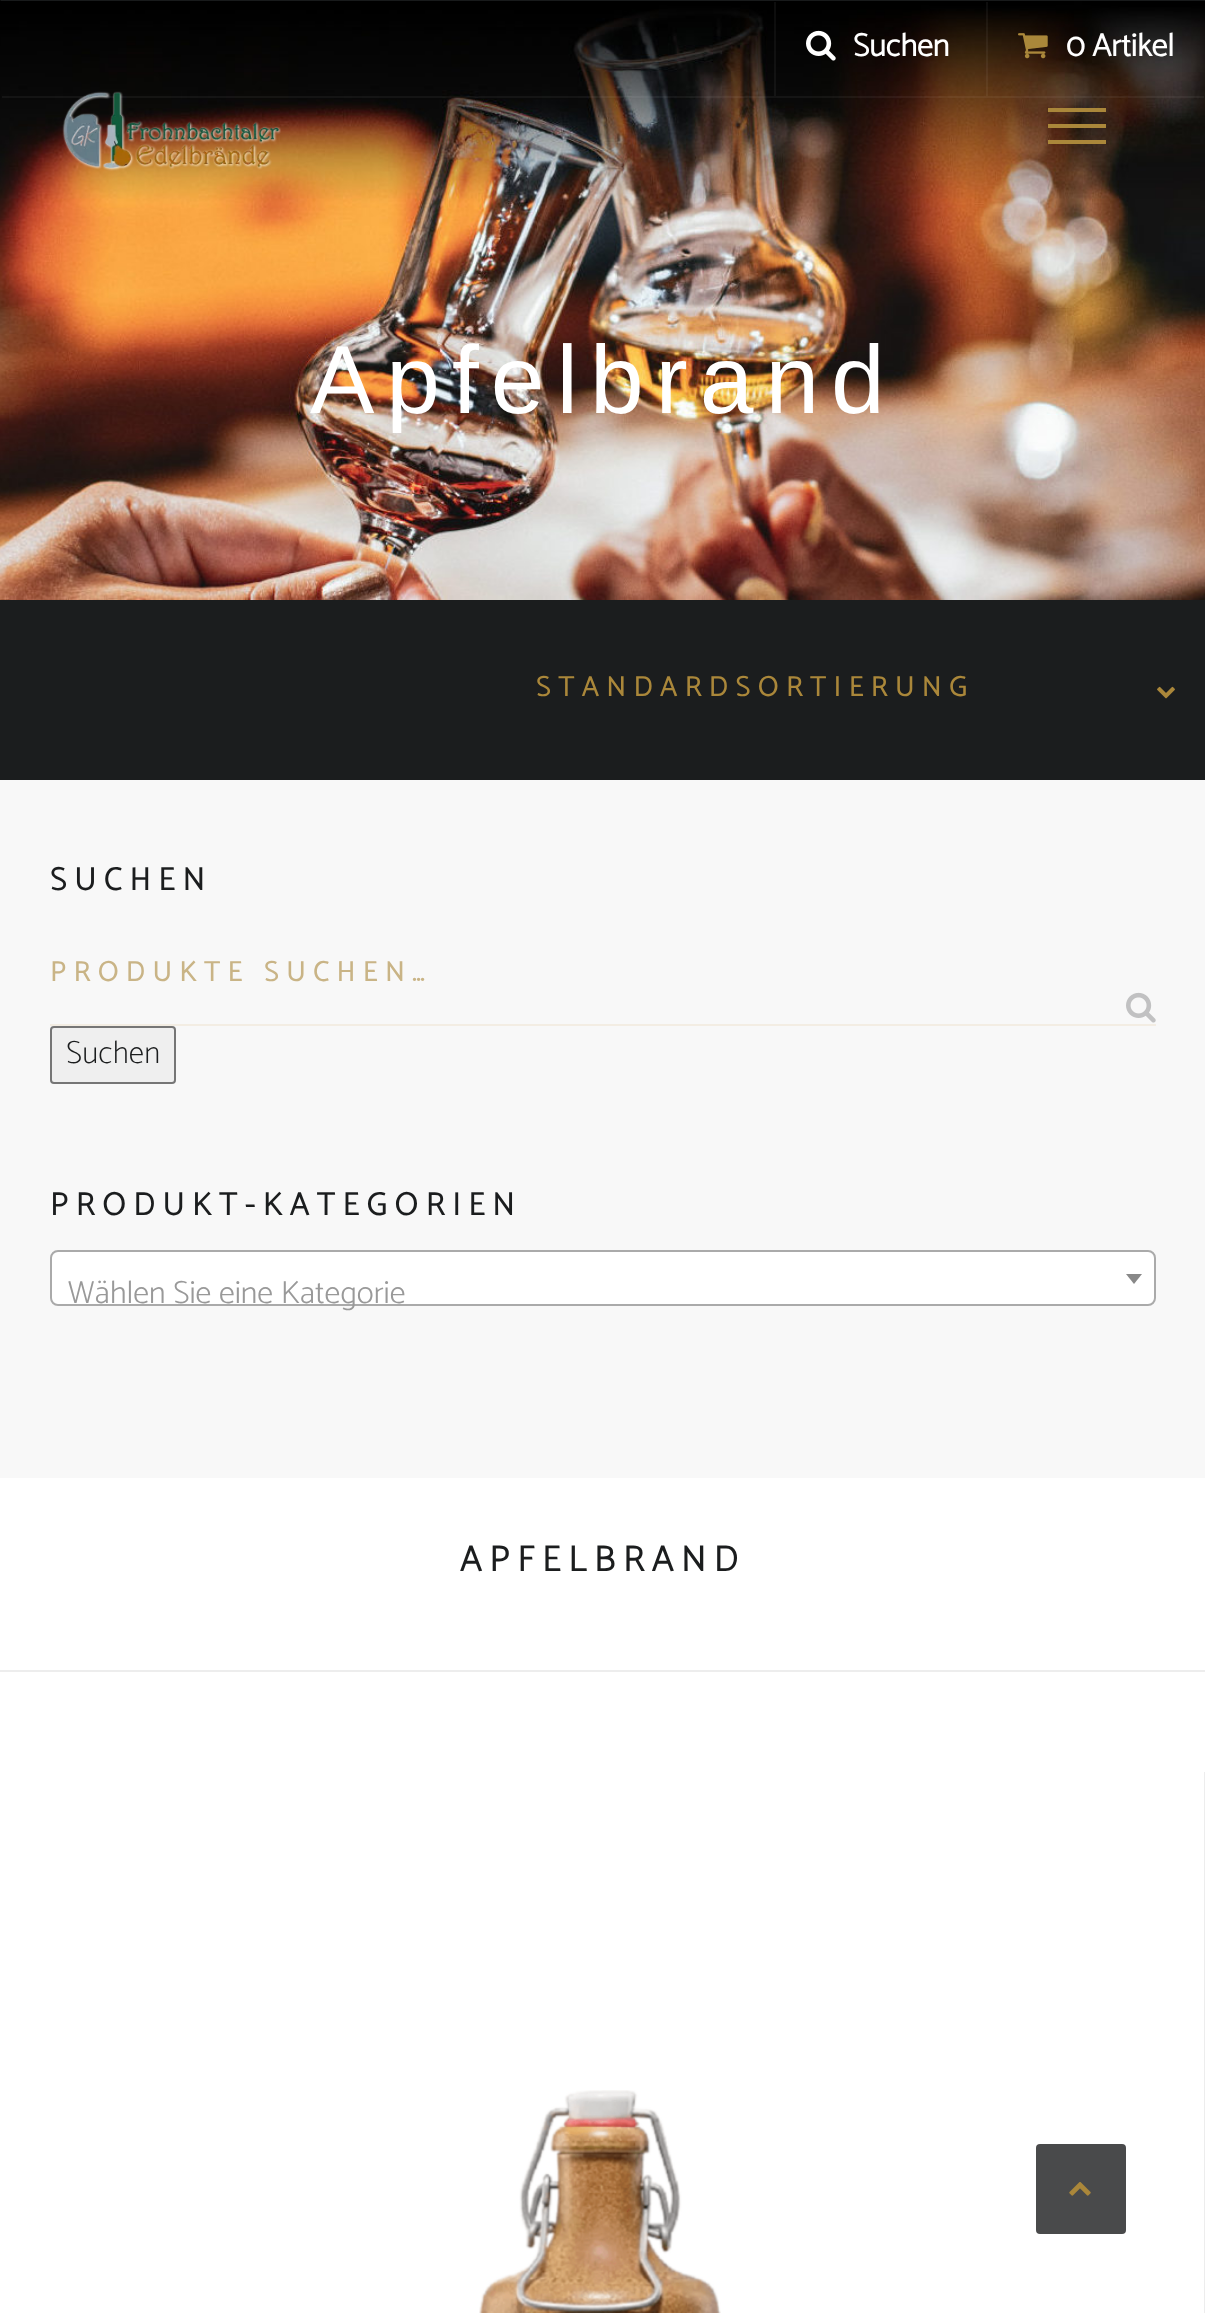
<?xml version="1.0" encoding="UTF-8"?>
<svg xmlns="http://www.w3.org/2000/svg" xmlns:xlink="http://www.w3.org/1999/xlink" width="1205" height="2313">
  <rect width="100%" height="100%" fill="#1b1d1e" />
  <image x="0" y="0" width="1205" height="600" xlink:href="image4.png" />
  <path d="M 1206 1 h -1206 l 2 -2 h 1202 z" fill="#181a1b" />
  <rect x="2" y="96" width="1202" height="2" fill="#ffffff" fill-opacity="0.05" />
  <rect x="774" y="2" width="2" height="94" fill="#ffffff" fill-opacity="0.05" />
  <image x="806" y="30" width="30" height="31" xlink:href="image1.png" />
  <rect x="986" y="2" width="2" height="94" fill="#ffffff" fill-opacity="0.05" />
  <image x="1018" y="33" width="30" height="26" xlink:href="image2.png" />
  <image x="62" y="91" width="219" height="80" xlink:href="image3.png" />
  <rect x="1048" y="108" width="58" height="4" fill="#aa873a" />
  <rect x="1048" y="124" width="58" height="4" fill="#aa873a" />
  <rect x="1048" y="140" width="58" height="4" fill="#aa873a" />
  <image x="1157" y="686" width="18" height="13" xlink:href="image5.png" />
  <rect y="1478" width="1205" height="835" fill="#ffffff" />
  <rect y="780" width="1205" height="698" fill="#f8f8f8" />
  <rect x="50" y="1024" width="1106" height="2" fill="#f3ede3" />
  <image x="1126" y="992" width="30" height="31" xlink:href="image6.png" />
  <rect x="51" y="1027" width="124" height="56" rx="3" fill="#efefef" stroke="#767676" stroke-width="2" />
  <rect x="51" y="1251" width="1104" height="54" rx="7" fill="#ffffff" stroke="#aaaaaa" stroke-width="2" />
  <path d="M 1126 1274 h 16 l -8 10 z" fill="#888888" />
  <rect y="1670" width="1205" height="2" fill="#ededed" />
  <rect x="1204" y="1772" width="1" height="541" fill="#ededed" />
  <image x="479" y="2090" width="242" height="223" xlink:href="image7.png" />
  <rect x="1036" y="2144" width="90" height="90" rx="4" fill="#494a4b" />
  <image x="1069" y="2182" width="22" height="14" xlink:href="image8.png" />
  <text x="853" y="56" style="font-family: Catamaran; font-size: 32px; font-weight: bold; fill: #ffffff">Suchen</text>
  <text x="1066" y="56" style="font-family: Catamaran; font-size: 32px; font-weight: bold; fill: #ffffff">0 Artikel</text>
  <text x="310" y="413" style="font-family: Liberation Sans; font-size: 96.5px; letter-spacing: 12px; fill: #ffffff">Apfelbrand</text>
  <text x="536" y="696" style="font-family: Catamaran; font-size: 28px; font-weight: bold; letter-spacing: 8px; fill: #aa873a">STANDARDSORTIERUNG</text>
  <text x="50" y="890" style="font-family: Catamaran; font-size: 32px; font-weight: bold; letter-spacing: 8px; fill: #1b1d1e">SUCHEN</text>
  <text x="50" y="981" style="font-family: Catamaran; font-size: 28px; font-weight: bold; letter-spacing: 8px; fill: #c9b486">PRODUKTE SUCHEN…</text>
  <text x="66" y="1063" style="font-family: Catamaran; font-size: 32px; font-weight: 100; fill: #1b1d1e">Suchen</text>
  <text x="50" y="1215" style="font-family: Catamaran; font-size: 32px; font-weight: bold; letter-spacing: 8px; fill: #1b1d1e">PRODUKT-KATEGORIEN</text>
  <text x="68" y="1303" style="font-family: Catamaran; font-size: 32px; font-weight: 300; fill: #999999">Wählen Sie eine Kategorie</text>
  <text x="460" y="1571" style="font-family: Catamaran; font-size: 36px; font-weight: bold; letter-spacing: 8px; fill: #1b1d1e">APFELBRAND</text>
</svg>
